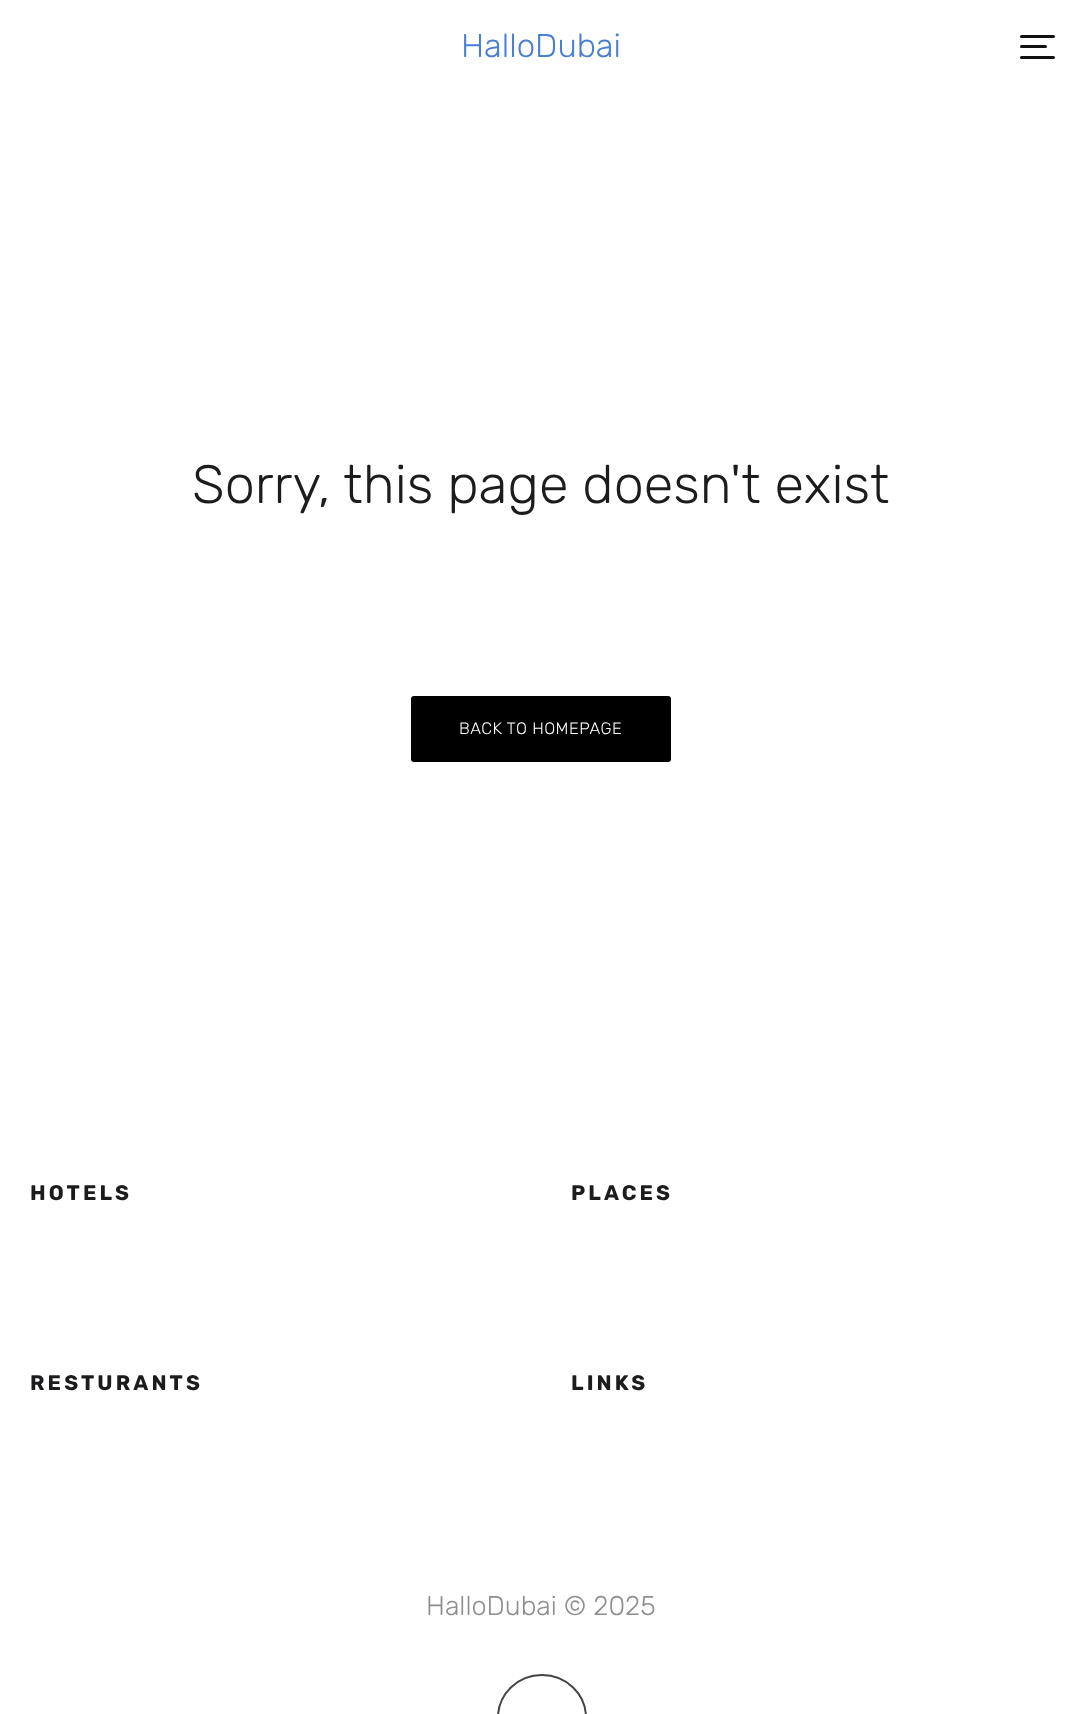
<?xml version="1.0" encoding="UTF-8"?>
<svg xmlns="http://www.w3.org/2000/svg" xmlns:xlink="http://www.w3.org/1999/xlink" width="1081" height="1714">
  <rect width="100%" height="100%" fill="#ffffff" />
  <rect x="1020" y="45" width="27" height="3" rx="1.5" fill="#111111" />
  <rect x="1020" y="35" width="35" height="3" rx="1.5" fill="#111111" />
  <rect x="1020" y="56" width="35" height="3" rx="1.5" fill="#111111" />
  <rect x="411" y="696" width="260" height="66" rx="3" fill="#000000" />
  <rect x="498" y="1675" width="88" height="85" rx="44" fill="none" stroke="#444444" stroke-width="2" />
  <text x="461" y="57" style="font-family: Rubik; font-size: 33px; font-weight: 300; fill: #497ed5">HalloDubai</text>
  <text x="192" y="503" style="font-family: Rubik; font-size: 54px; font-weight: 300; fill: #1c1c1e">Sorry, this page doesn't exist</text>
  <text x="459" y="734" style="font-family: Rubik; font-size: 16.5px; font-weight: 300; letter-spacing: 0.5px; fill: #ffffff">BACK TO HOMEPAGE</text>
  <text x="30" y="1200" style="font-family: Rubik; font-size: 21px; font-weight: bold; letter-spacing: 3.1px; fill: #1c1c1e">HOTELS</text>
  <text x="571" y="1200" style="font-family: Rubik; font-size: 21px; font-weight: bold; letter-spacing: 3.1px; fill: #1c1c1e">PLACES</text>
  <text x="30" y="1390" style="font-family: Rubik; font-size: 21px; font-weight: bold; letter-spacing: 3.1px; fill: #1c1c1e">RESTURANTS</text>
  <text x="571" y="1390" style="font-family: Rubik; font-size: 21px; font-weight: bold; letter-spacing: 3.1px; fill: #1c1c1e">LINKS</text>
  <text x="426" y="1615" style="font-family: Rubik; font-size: 27px; font-weight: 300; fill: #8e8e8e">HalloDubai © 2025</text>
</svg>
